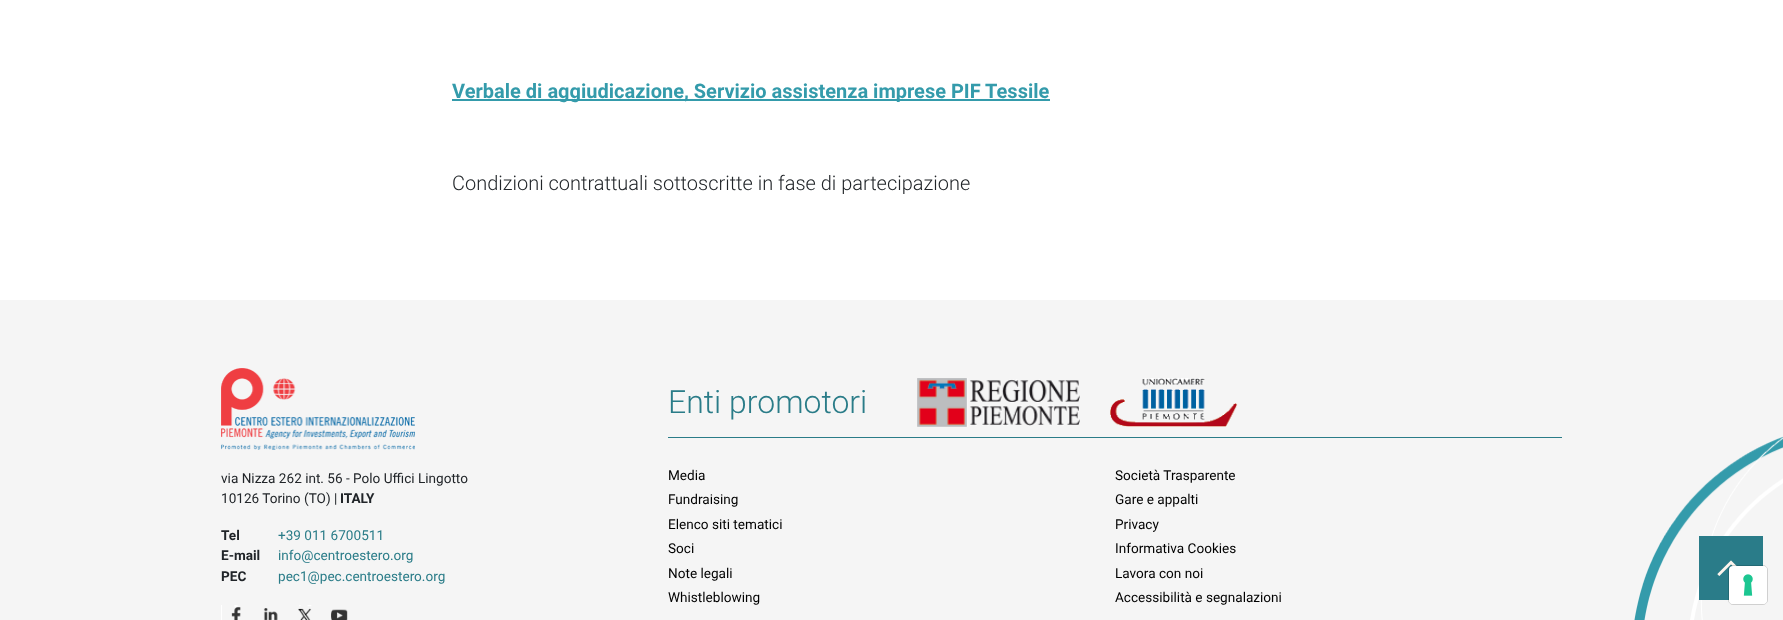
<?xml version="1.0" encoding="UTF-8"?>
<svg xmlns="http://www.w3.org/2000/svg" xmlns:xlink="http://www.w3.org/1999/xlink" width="1783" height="620">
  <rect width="100%" height="100%" fill="#ffffff" />
  <rect x="452" y="99" width="598" height="2" fill="#349bab" />
  <rect y="300" width="1783" height="320" fill="#f5f5f5" />
  <image x="1634" y="436" width="149" height="184" xlink:href="image1.png" />
  <image x="221" y="368" width="194" height="82" xlink:href="image2.png" />
  <rect x="221" y="605" width="1" height="15" fill="#ffffff" />
  <image x="231" y="605" width="10" height="15" xlink:href="image3.png" />
  <image x="263" y="608" width="15" height="12" xlink:href="image4.png" />
  <image x="298" y="605" width="14" height="15" xlink:href="image5.png" />
  <image x="331" y="609" width="17" height="11" xlink:href="image6.png" />
  <rect x="668" y="437" width="894" height="1" fill="#2a7c88" />
  <image x="917" y="378" width="163" height="49" xlink:href="image7.png" />
  <image x="1110" y="378" width="128" height="49" xlink:href="image8.png" />
  <rect x="1699" y="536" width="64" height="64" fill="#2a7c89" />
  <image x="1717" y="560" width="20" height="16" xlink:href="image9.png" />
  <rect x="1728.5" y="565.5" width="39" height="39" rx="4.5" fill="none" stroke="#000000" stroke-opacity="0.15" />
  <rect x="1729" y="566" width="38" height="38" rx="4" fill="#ffffff" />
  <image x="1743" y="574" width="10" height="22" xlink:href="image10.png" />
  <text x="452" y="98" style="font-family: Roboto; font-size: 20px; font-weight: bold; fill: #349bab">Verbale di aggiudicazione, Servizio assistenza imprese PIF Tessile</text>
  <text x="452" y="190" style="font-family: Roboto; font-size: 20px; font-weight: 300; fill: #212529">Condizioni contrattuali sottoscritte in fase di partecipazione</text>
  <text x="221" y="483" style="font-family: Roboto; font-size: 13.6px; fill: #212529">via Nizza 262 int. 56 - Polo Uffici Lingotto</text>
  <text x="221" y="503" style="font-family: Roboto; font-size: 13.6px; fill: #212529">10126 Torino (TO) |</text>
  <text x="340" y="503" style="font-family: Roboto; font-size: 13.6px; font-weight: bold; fill: #212529">ITALY</text>
  <text x="221" y="540" style="font-family: Roboto; font-size: 13.6px; font-weight: bold; fill: #212529">Tel</text>
  <text x="278" y="540" style="font-family: Roboto; font-size: 13.6px; fill: #2a7c88">+39 011 6700511</text>
  <text x="221" y="560" style="font-family: Roboto; font-size: 13.6px; font-weight: bold; fill: #212529">E-mail</text>
  <text x="278" y="560" style="font-family: Roboto; font-size: 13.6px; fill: #2a7c88">info@centroestero.org</text>
  <text x="221" y="581" style="font-family: Roboto; font-size: 13.6px; font-weight: bold; fill: #212529">PEC</text>
  <text x="278" y="581" style="font-family: Roboto; font-size: 13.6px; fill: #2a7c88">pec1@pec.centroestero.org</text>
  <text x="668" y="413" style="font-family: Roboto; font-size: 32px; font-weight: 300; fill: #2a7c88">Enti promotori</text>
  <text x="668" y="480" style="font-family: Roboto; font-size: 13.6px; fill: #000000">Media</text>
  <text x="1115" y="480" style="font-family: Roboto; font-size: 13.6px; fill: #000000">Società Trasparente</text>
  <text x="668" y="504" style="font-family: Roboto; font-size: 13.6px; fill: #000000">Fundraising</text>
  <text x="1115" y="504" style="font-family: Roboto; font-size: 13.6px; fill: #000000">Gare e appalti</text>
  <text x="668" y="529" style="font-family: Roboto; font-size: 13.6px; fill: #000000">Elenco siti tematici</text>
  <text x="1115" y="529" style="font-family: Roboto; font-size: 13.6px; fill: #000000">Privacy</text>
  <text x="668" y="553" style="font-family: Roboto; font-size: 13.6px; fill: #000000">Soci</text>
  <text x="1115" y="553" style="font-family: Roboto; font-size: 13.6px; fill: #000000">Informativa Cookies</text>
  <text x="668" y="578" style="font-family: Roboto; font-size: 13.6px; fill: #000000">Note legali</text>
  <text x="1115" y="578" style="font-family: Roboto; font-size: 13.6px; fill: #000000">Lavora con noi</text>
  <text x="668" y="602" style="font-family: Roboto; font-size: 13.6px; fill: #000000">Whistleblowing</text>
  <text x="1115" y="602" style="font-family: Roboto; font-size: 13.6px; fill: #000000">Accessibilità e segnalazioni</text>
</svg>
